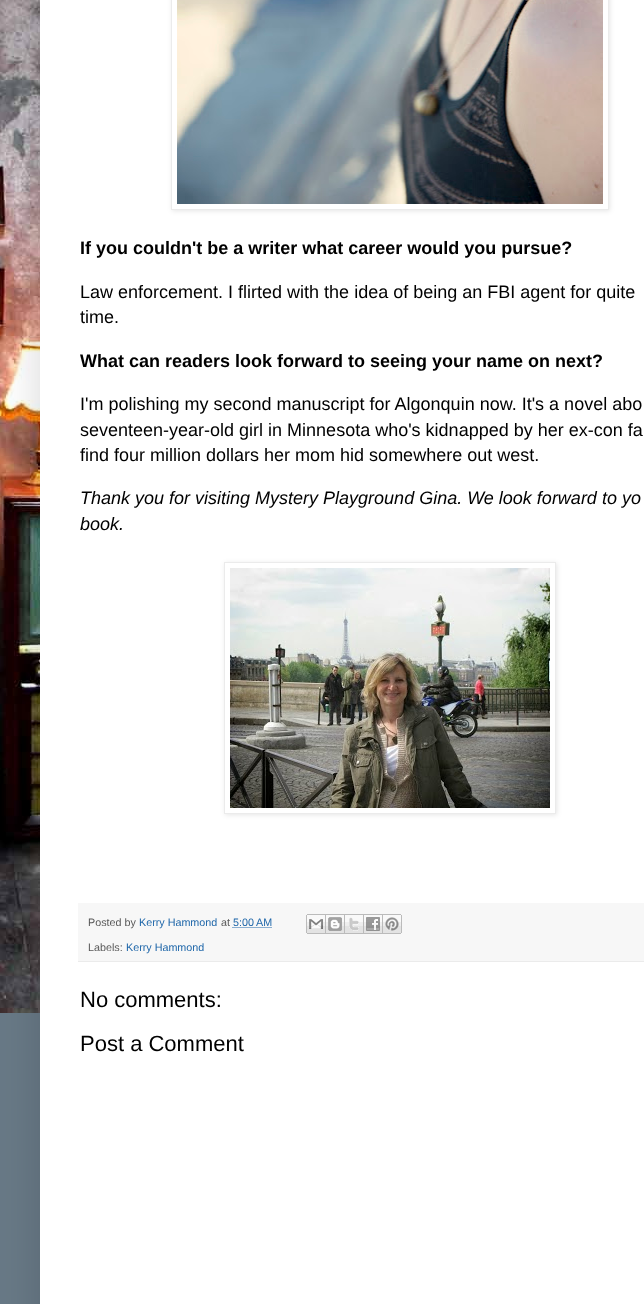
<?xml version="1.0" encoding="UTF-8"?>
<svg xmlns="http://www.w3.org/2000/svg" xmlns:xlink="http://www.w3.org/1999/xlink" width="644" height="1304">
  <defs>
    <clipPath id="clip1"><path d="M 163 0 h 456 v 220 h -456 z m 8 -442 h 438 v 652 h -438 z" clip-rule="evenodd" /></clipPath>
    <clipPath id="clip2"><path d="M 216 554 h 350 v 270 h -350 z m 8 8 h 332 v 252 h -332 z" clip-rule="evenodd" /></clipPath>
  </defs>
  <rect width="100%" height="100%" fill="#687986" />
  <image x="0" y="0" width="40" height="1013" xlink:href="image1.png" />
  <rect x="40" y="-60" width="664" height="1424" fill="#000000" fill-opacity="0.15" filter="blur(20px)" />
  <rect x="40" width="604" height="1304" fill="#ffffff" />
  <g clip-path="url(#clip1)">
    <rect x="172" y="-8" width="438" height="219" fill="#000000" fill-opacity="0.1" filter="blur(2.5px)" />
  </g>
  <rect x="171.5" y="-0.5" width="437" height="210" fill="none" stroke="#ebebeb" />
  <image x="177" y="0" width="426" height="204" xlink:href="image2.png" />
  <g clip-path="url(#clip2)">
    <rect x="225" y="563" width="332" height="252" fill="#000000" fill-opacity="0.1" filter="blur(2.5px)" />
  </g>
  <rect x="224.5" y="562.5" width="331" height="251" fill="none" stroke="#ebebeb" />
  <image x="230" y="568" width="320" height="240" xlink:href="image3.png" />
  <rect x="78" y="903" width="566" height="58" fill="#f7f7f7" />
  <rect x="78" y="961" width="566" height="1" fill="#ebebeb" />
  <path d="M 232.5 927.5 h 39.5" fill="none" stroke="#1e66a9" stroke-dasharray="1 1" />
  <image x="306" y="914" width="20" height="20" xlink:href="image4.png" />
  <image x="326" y="914" width="19" height="20" xlink:href="image5.png" />
  <image x="345" y="914" width="19" height="20" xlink:href="image6.png" />
  <image x="364" y="914" width="19" height="20" xlink:href="image7.png" />
  <image x="383" y="914" width="19" height="20" xlink:href="image8.png" />
  <text x="80" y="254" style="font-family: Liberation Sans; font-size: 18px; font-weight: bold; fill: #000000">If you couldn't be a writer what career would you pursue?</text>
  <text x="80" y="298" style="font-family: Liberation Sans; font-size: 18px; fill: #000000">Law enforcement. I flirted with the idea of being an FBI agent for quite</text>
  <text x="80" y="323" style="font-family: Liberation Sans; font-size: 18px; fill: #000000">time.</text>
  <text x="80" y="367" style="font-family: Liberation Sans; font-size: 18px; font-weight: bold; fill: #000000">What can readers look forward to seeing your name on next?</text>
  <text x="80" y="410" style="font-family: Liberation Sans; font-size: 18px; fill: #000000">I'm polishing my second manuscript for Algonquin now. It's a novel abo</text>
  <text x="80" y="436" style="font-family: Liberation Sans; font-size: 18px; fill: #000000">seventeen-year-old girl in Minnesota who's kidnapped by her ex-con fa</text>
  <text x="80" y="461" style="font-family: Liberation Sans; font-size: 18px; fill: #000000">find four million dollars her mom hid somewhere out west.</text>
  <text x="80" y="504" style="font-family: Liberation Sans; font-size: 18px; font-style: italic; fill: #000000">Thank you for visiting Mystery Playground Gina. We look forward to yo</text>
  <text x="80" y="530" style="font-family: Liberation Sans; font-size: 18px; font-style: italic; fill: #000000">book.</text>
  <text x="88" y="926" style="font-family: Liberation Sans; font-size: 10.75px; fill: #595959">Posted by</text>
  <text x="139" y="926" style="font-family: Liberation Sans; font-size: 10.75px; fill: #1e66a9">Kerry Hammond</text>
  <text x="221" y="926" style="font-family: Liberation Sans; font-size: 10.75px; fill: #595959">at</text>
  <text x="233" y="926" style="font-family: Liberation Sans; font-size: 10.75px; fill: #1e66a9">5:00 AM</text>
  <text x="88" y="951" style="font-family: Liberation Sans; font-size: 10.75px; fill: #595959">Labels:</text>
  <text x="126" y="951" style="font-family: Liberation Sans; font-size: 10.75px; fill: #1e66a9">Kerry Hammond</text>
  <text x="80" y="1007" style="font-family: Liberation Sans; font-size: 22px; fill: #000000">No comments:</text>
  <text x="80" y="1051" style="font-family: Liberation Sans; font-size: 22px; fill: #000000">Post a Comment</text>
</svg>
